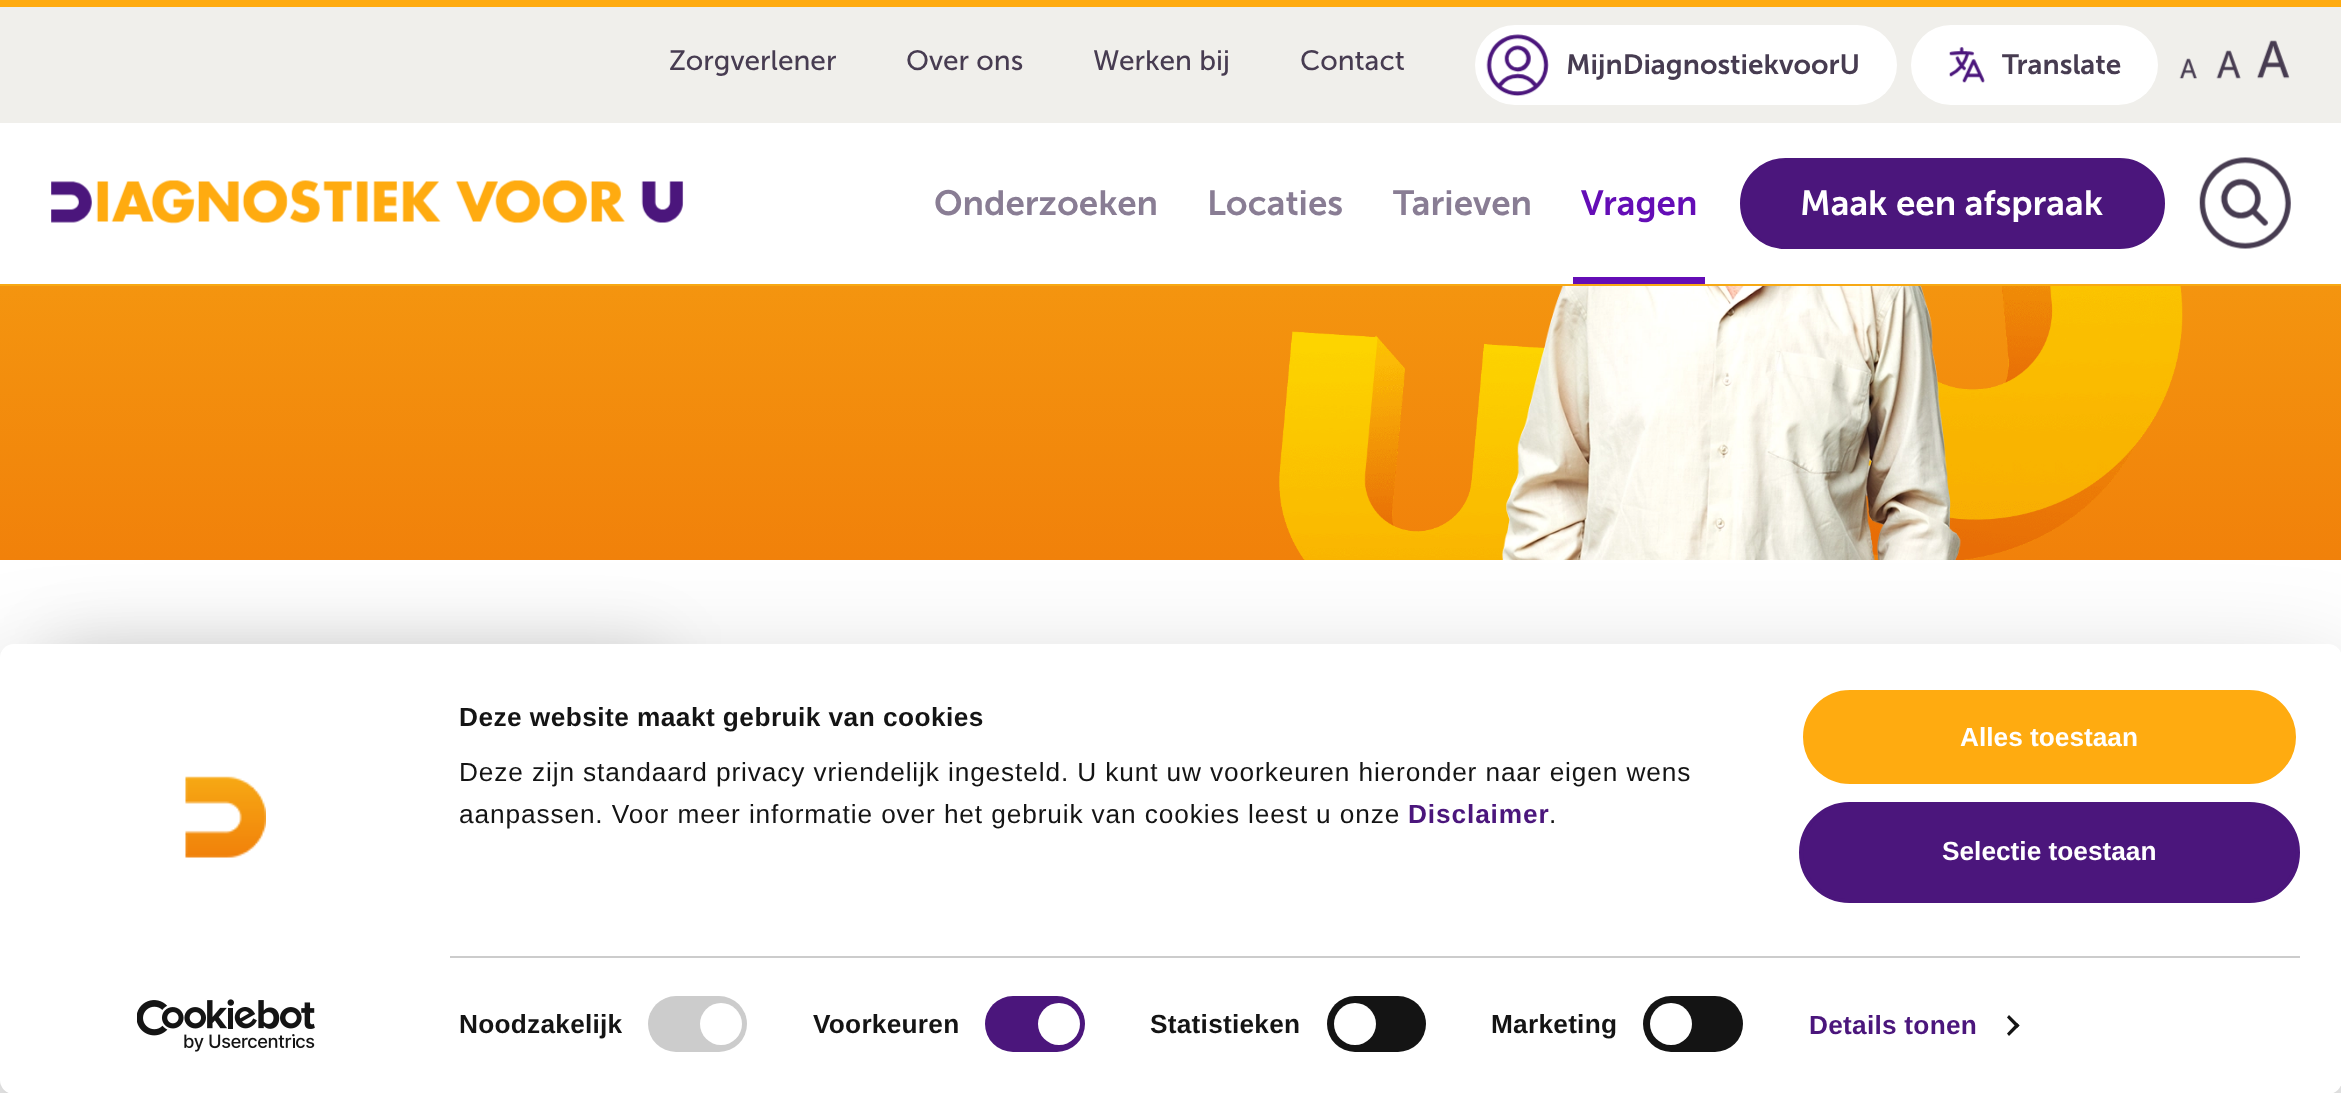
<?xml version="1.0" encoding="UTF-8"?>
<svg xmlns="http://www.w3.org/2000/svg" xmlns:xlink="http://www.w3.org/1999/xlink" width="2341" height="1093">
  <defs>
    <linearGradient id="g1" gradientUnits="userSpaceOnUse" x1="1171" y1="0" x2="1171" y2="560"><stop offset="0" stop-color="#f7a914" /><stop offset="1" stop-color="#f1810a" /></linearGradient>
  </defs>
  <rect width="100%" height="100%" fill="#ffffff" />
  <rect width="2341" height="7" fill="#ffab10" />
  <rect y="7" width="2341" height="116" fill="#f0efeb" />
  <rect x="1475" y="25" width="422" height="80" rx="40" fill="#ffffff" />
  <image x="1486" y="34" width="63" height="62" xlink:href="image1.png" />
  <rect x="1911" y="25" width="247" height="80" rx="40" fill="#ffffff" />
  <image x="1949" y="47" width="36" height="36" xlink:href="image2.png" />
  <image x="2179" y="58" width="18" height="21" xlink:href="image3.png" />
  <image x="2216" y="50" width="25" height="29" xlink:href="image4.png" />
  <image x="2257" y="40" width="33" height="39" xlink:href="image5.png" />
  <rect y="284" width="2341" height="2" fill="#f7a914" />
  <image x="51" y="180" width="633" height="44" xlink:href="image6.png" />
  <rect x="1573" y="277" width="132" height="7" fill="#640db6" />
  <rect x="1741" y="159" width="423" height="89" rx="44.5" fill="#4b167c" stroke="#4b167c" stroke-width="2" />
  <image x="2199" y="157" width="92" height="92" xlink:href="image7.png" />
  <rect y="286" width="2341" height="274" fill="url(#g1)" />
  <image x="1279" y="286" width="904" height="274" xlink:href="image8.png" />
  <image x="1501" y="286" width="460" height="274" xlink:href="image9.png" />
  <rect x="51" y="644" width="614" height="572" rx="18" fill="#000000" fill-opacity="0.12" filter="blur(35px)" />
  <rect y="697" width="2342" height="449" rx="14" fill="#000000" fill-opacity="0.3" filter="blur(61px)" />
  <rect y="644" width="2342" height="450" rx="14" fill="#ffffff" />
  <image x="185" y="776" width="81" height="82" xlink:href="image10.png" />
  <image x="137" y="999" width="178" height="53" xlink:href="image11.png" />
  <rect x="450" y="956" width="1850" height="2" fill="#cccccc" />
  <rect x="648" y="996" width="99" height="56" rx="28" fill="#cccccc" />
  <circle cx="721" cy="1024" r="21" fill="#ffffff" />
  <rect x="985" y="996" width="100" height="56" rx="28" fill="#4b167c" />
  <circle cx="1059" cy="1024" r="21" fill="#ffffff" />
  <rect x="1327" y="996" width="99" height="56" rx="28" fill="#141414" />
  <circle cx="1355" cy="1024" r="21" fill="#ffffff" />
  <rect x="1643" y="996" width="100" height="56" rx="28" fill="#141414" />
  <circle cx="1671" cy="1024" r="21" fill="#ffffff" />
  <path d="M 2009 1015 l 10.5 10.5 l -2.5 2.5 l -10 -10.5 z" fill="#141414" />
  <path d="M 2017 1023 l 2.5 2.5 l -10.5 10.5 l -2 -2.5 z" fill="#141414" />
  <rect x="1801" y="688" width="497" height="98" rx="49" fill="#ffab10" stroke="#ffffff" stroke-width="4" />
  <rect x="1801" y="804" width="497" height="97" rx="48.5" fill="#4b167c" stroke="#4b167c" stroke-width="4" />
  <text x="669" y="70" style="font-family: 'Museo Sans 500'; font-size: 28px; fill: #473c51">Zorgverlener</text>
  <text x="906" y="70" style="font-family: 'Museo Sans 500'; font-size: 28px; fill: #473c51">Over ons</text>
  <text x="1093" y="70" style="font-family: 'Museo Sans 500'; font-size: 28px; fill: #473c51">Werken bij</text>
  <text x="1300" y="70" style="font-family: 'Museo Sans 500'; font-size: 28px; fill: #473c51">Contact</text>
  <text x="1566" y="74" style="font-family: 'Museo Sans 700'; font-size: 28px; font-weight: 600; fill: #473c51">MijnDiagnostiekvoorU</text>
  <text x="2002" y="74" style="font-family: 'Museo Sans 700'; font-size: 28px; font-weight: 600; fill: #473c51">Translate</text>
  <text x="934" y="215" style="font-family: 'Museo Sans 700'; font-size: 35px; font-weight: 600; fill: #897d94">Onderzoeken</text>
  <text x="1207" y="215" style="font-family: 'Museo Sans 700'; font-size: 35px; font-weight: 600; fill: #897d94">Locaties</text>
  <text x="1393" y="215" style="font-family: 'Museo Sans 700'; font-size: 35px; font-weight: 600; fill: #897d94">Tarieven</text>
  <text x="1581" y="215" style="font-family: 'Museo Sans 700'; font-size: 35px; font-weight: 600; fill: #640db6">Vragen</text>
  <text x="1800" y="215" style="font-family: 'Museo Sans 700'; font-size: 35px; font-weight: 600; fill: #ffffff">Maak een afspraak</text>
  <text x="459" y="726" style="font-family: Liberation Sans; font-size: 26.25px; font-weight: bold; letter-spacing: 0.45px; fill: #141414">Deze website maakt gebruik van cookies</text>
  <text x="459" y="781" style="font-family: Liberation Sans; font-size: 26.25px; letter-spacing: 0.88px; fill: #141414">Deze zijn standaard privacy vriendelijk ingesteld. U kunt uw voorkeuren hieronder naar eigen wens</text>
  <text x="459" y="823" style="font-family: Liberation Sans; font-size: 26.25px; letter-spacing: 0.88px; fill: #141414">aanpassen. Voor meer informatie over het gebruik van cookies leest u onze</text>
  <text x="1408" y="823" style="font-family: Liberation Sans; font-size: 26.25px; font-weight: bold; letter-spacing: 0.88px; fill: #4b167c">Disclaimer</text>
  <text x="1549" y="823" style="font-family: Liberation Sans; font-size: 26.25px; letter-spacing: 0.88px; fill: #141414">.</text>
  <text x="459" y="1033" style="font-family: Liberation Sans; font-size: 26.25px; font-weight: bold; letter-spacing: 0.25px; fill: #141414">Noodzakelijk</text>
  <text x="813" y="1033" style="font-family: Liberation Sans; font-size: 26.25px; font-weight: bold; letter-spacing: 0.25px; fill: #141414">Voorkeuren</text>
  <text x="1150" y="1033" style="font-family: Liberation Sans; font-size: 26.25px; font-weight: bold; letter-spacing: 0.25px; fill: #141414">Statistieken</text>
  <text x="1491" y="1033" style="font-family: Liberation Sans; font-size: 26.25px; font-weight: bold; letter-spacing: 0.25px; fill: #141414">Marketing</text>
  <text x="1809" y="1034" style="font-family: Liberation Sans; font-size: 26.25px; font-weight: bold; letter-spacing: 0.25px; fill: #4b167c">Details tonen</text>
  <text x="1960" y="746" style="font-family: Liberation Sans; font-size: 26.25px; font-weight: bold; fill: #ffffff">Alles toestaan</text>
  <text x="1942" y="860" style="font-family: Liberation Sans; font-size: 26.25px; font-weight: bold; fill: #ffffff">Selectie toestaan</text>
</svg>
